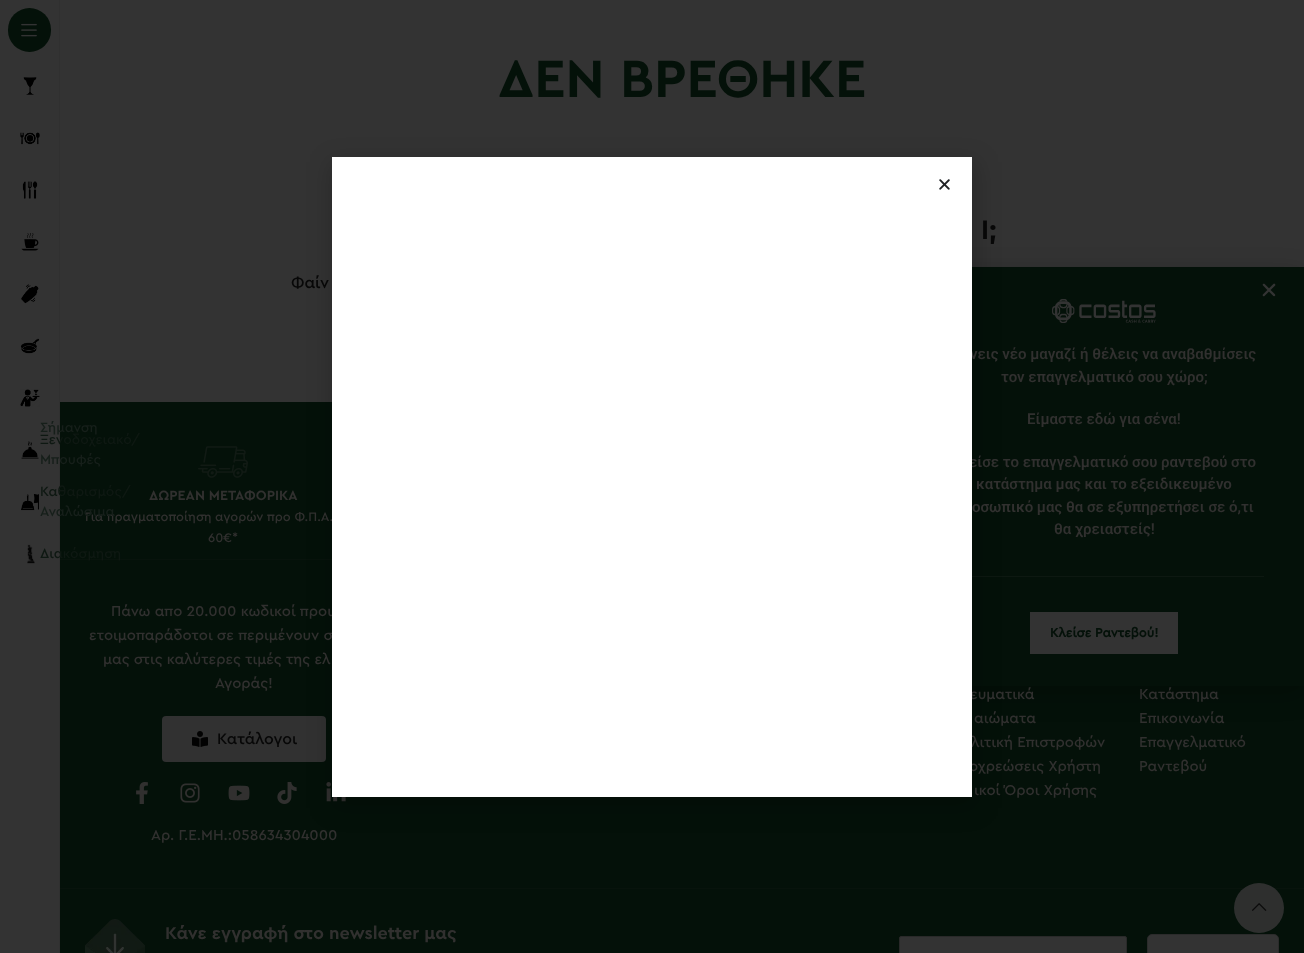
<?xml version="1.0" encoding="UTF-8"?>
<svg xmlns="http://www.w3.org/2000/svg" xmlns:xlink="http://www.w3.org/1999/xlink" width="1304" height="953">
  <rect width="100%" height="100%" fill="#333333" />
  <rect x="60" y="402" width="272" height="157" fill="#041109" />
  <rect x="60" y="559" width="272" height="1" fill="#08130c" />
  <image x="198" y="446" width="50" height="32" xlink:href="image1.png" />
  <rect x="60" y="560" width="1244" height="328" fill="#041109" />
  <rect x="60" y="888" width="1244" height="1" fill="#08130c" />
  <rect x="162" y="716" width="164" height="46" rx="4" fill="#313131" />
  <image x="192" y="731" width="16" height="16" xlink:href="image2.png" />
  <image x="136" y="782" width="12" height="22" xlink:href="image3.png" />
  <image x="180" y="783" width="20" height="20" xlink:href="image4.png" />
  <image x="228" y="785" width="22" height="16" xlink:href="image5.png" />
  <image x="277" y="782" width="20" height="22" xlink:href="image6.png" />
  <image x="326" y="782" width="20" height="20" xlink:href="image7.png" />
  <rect x="60" y="889" width="1244" height="64" fill="#041109" />
  <image x="85" y="919" width="60" height="34" xlink:href="image8.png" />
  <rect x="899.5" y="936.5" width="227" height="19" rx="1.5" fill="#333333" stroke="#292929" />
  <rect x="1147.5" y="934.5" width="131" height="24" rx="4.5" fill="#333333" stroke="#2b2b2b" />
  <rect x="59" width="1" height="953" fill="#303030" />
  <rect x="8" y="8" width="43" height="44" rx="21.5" fill="#041109" />
  <image x="21" y="23" width="16" height="14" xlink:href="image9.png" />
  <image x="23" y="77" width="14" height="18" xlink:href="image10.png" />
  <image x="20" y="132" width="20" height="13" xlink:href="image11.png" />
  <image x="22" y="181" width="16" height="18" xlink:href="image12.png" />
  <image x="21" y="233" width="18" height="18" xlink:href="image13.png" />
  <image x="21" y="284" width="18" height="20" xlink:href="image14.png" />
  <image x="20" y="338" width="20" height="16" xlink:href="image15.png" />
  <image x="20" y="389" width="20" height="18" xlink:href="image16.png" />
  <image x="21" y="441" width="18" height="18" xlink:href="image17.png" />
  <image x="21" y="494" width="18" height="17" xlink:href="image18.png" />
  <image x="27" y="544" width="8" height="20" xlink:href="image19.png" />
  <rect x="903" y="272" width="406" height="425" rx="18" fill="#000000" fill-opacity="0.2" filter="blur(11.5px)" />
  <rect x="972" y="267" width="332" height="419" fill="#041109" />
  <rect x="972" y="576" width="292" height="1" fill="#0d1811" />
  <rect x="331" y="162" width="646" height="646" fill="#000000" fill-opacity="0.2" filter="blur(11.5px)" />
  <image x="1262" y="283" width="14" height="14" xlink:href="image21.png" />
  <image x="1052" y="299" width="104" height="24" xlink:href="image22.png" />
  <rect x="1030" y="612" width="148" height="42" fill="#333333" />
  <circle cx="1259" cy="908" r="25" fill="#333333" fill-opacity="0.9" />
  <image x="1252" y="903" width="15" height="8" xlink:href="image23.png" />
  <text x="498" y="97" style="font-family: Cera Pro; font-size: 54.75px; font-weight: bold; fill: #041109">ΔΕΝ ΒΡΕΘΗΚΕ</text>
  <text x="981" y="239" style="font-family: Cera Pro; font-size: 28px; font-weight: bold; fill: #070707">Ι;</text>
  <text x="291" y="288" style="font-family: Cera Pro; font-size: 16.5px; font-weight: 500; fill: #070707">Φαίν</text>
  <text x="149" y="500" style="font-family: Cera Pro; font-size: 14px; font-weight: bold; fill: #31302f">ΔΩΡΕΑΝ ΜΕΤΑΦΟΡΙΚΑ</text>
  <text x="85" y="521" style="font-family: Cera Pro; font-size: 13px; font-weight: 500; fill: #31302f">Για πραγματοποίηση αγορών προ Φ.Π.Α.</text>
  <text x="208" y="542" style="font-family: Cera Pro; font-size: 13px; font-weight: 500; fill: #31302f">60€*</text>
  <text x="111" y="616" style="font-family: Cera Pro; font-size: 15px; font-weight: 500; fill: #31302f">Πάνω απο 20.000 κωδικοί προι</text>
  <text x="89" y="640" style="font-family: Cera Pro; font-size: 15px; font-weight: 500; fill: #31302f">ετοιμοπαράδοτοι σε περιμένουν σ</text>
  <text x="103" y="664" style="font-family: Cera Pro; font-size: 15px; font-weight: 500; fill: #31302f">μας στις καλύτερες τιμές της ελ</text>
  <text x="215" y="688" style="font-family: Cera Pro; font-size: 15px; font-weight: 500; fill: #31302f">Αγοράς!</text>
  <text x="217" y="744" style="font-family: Cera Pro; font-size: 16px; font-weight: 500; fill: #070707">Κατάλογοι</text>
  <text x="151" y="840" style="font-family: Cera Pro; font-size: 15px; font-weight: 500; fill: #31302f">Αρ. Γ.Ε.ΜΗ.:058634304000</text>
  <text x="970" y="699" style="font-family: Cera Pro; font-size: 15px; font-weight: 500; fill: #31302f">ευματικά</text>
  <text x="974" y="723" style="font-family: Cera Pro; font-size: 15px; font-weight: 500; fill: #31302f">αιώματα</text>
  <text x="971" y="747" style="font-family: Cera Pro; font-size: 15px; font-weight: 500; fill: #31302f">λιτική Επιστροφών</text>
  <text x="969" y="771" style="font-family: Cera Pro; font-size: 15px; font-weight: 500; fill: #31302f">οχρεώσεις Χρήστη</text>
  <text x="974" y="795" style="font-family: Cera Pro; font-size: 15px; font-weight: 500; fill: #31302f">ικοί Όροι Χρήσης</text>
  <text x="1139" y="699" style="font-family: Cera Pro; font-size: 15px; font-weight: 500; fill: #31302f">Κατάστημα</text>
  <text x="1139" y="723" style="font-family: Cera Pro; font-size: 15px; font-weight: 500; fill: #31302f">Επικοινωνία</text>
  <text x="1139" y="747" style="font-family: Cera Pro; font-size: 15px; font-weight: 500; fill: #31302f">Επαγγελματικό</text>
  <text x="1139" y="771" style="font-family: Cera Pro; font-size: 15px; font-weight: 500; fill: #31302f">Ραντεβού</text>
  <text x="165" y="939" style="font-family: Cera Pro; font-size: 18px; font-weight: bold; fill: #31302f">Κάνε εγγραφή στο newsletter μας</text>
  <text x="40" y="432" style="font-family: Cera Pro; font-size: 14px; font-weight: 500; fill: #161f1a">Σήμανση</text>
  <text x="40" y="444" style="font-family: Cera Pro; font-size: 14px; font-weight: 500; fill: #0e1812">Ξενοδοχειακό/</text>
  <text x="40" y="464" style="font-family: Cera Pro; font-size: 14px; font-weight: 500; fill: #161f1a">Μπουφές</text>
  <text x="40" y="496" style="font-family: Cera Pro; font-size: 14px; font-weight: 500; fill: #0e1812">Καθαρισμός/</text>
  <text x="40" y="516" style="font-family: Cera Pro; font-size: 14px; font-weight: 500; fill: #161f1a">Αναλώσιμα</text>
  <text x="40" y="558" style="font-family: Cera Pro; font-size: 14px; font-weight: 500; fill: #0e1812">Διακόσμηση</text>
  <text x="970" y="359" style="font-family: Roboto; font-size: 15px; font-weight: 600; fill: #31302f">νεις νέο μαγαζί ή θέλεις να αναβαθμίσεις</text>
  <text x="1001" y="382" style="font-family: Roboto; font-size: 15px; font-weight: 600; fill: #31302f">τον επαγγελματικό σου χώρο;</text>
  <text x="1027" y="424" style="font-family: Roboto; font-size: 15px; font-weight: 600; fill: #31302f">Είμαστε εδώ για σένα!</text>
  <text x="969" y="467" style="font-family: Roboto; font-size: 15px; font-weight: 600; fill: #31302f">είσε το επαγγελματικό σου ραντεβού στο</text>
  <rect x="332" y="157" width="640" height="640" fill="#ffffff" />
  <image x="939" y="179" width="11" height="11" xlink:href="image20.png" />
  <text x="976" y="489" style="font-family: Roboto; font-size: 15px; font-weight: 600; fill: #31302f">κατάστημα μας και το εξειδικευμένο</text>
  <text x="972" y="512" style="font-family: Roboto; font-size: 15px; font-weight: 600; fill: #31302f">οσωπικό μας θα σε εξυπηρετήσει σε ό,τι</text>
  <text x="1054" y="534" style="font-family: Roboto; font-size: 15px; font-weight: 600; fill: #31302f">θα χρειαστείς!</text>
  <text x="1050" y="637" style="font-family: 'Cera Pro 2'; font-size: 13px; font-weight: bold; fill: #041109">Κλείσε Ραντεβού!</text>
</svg>
